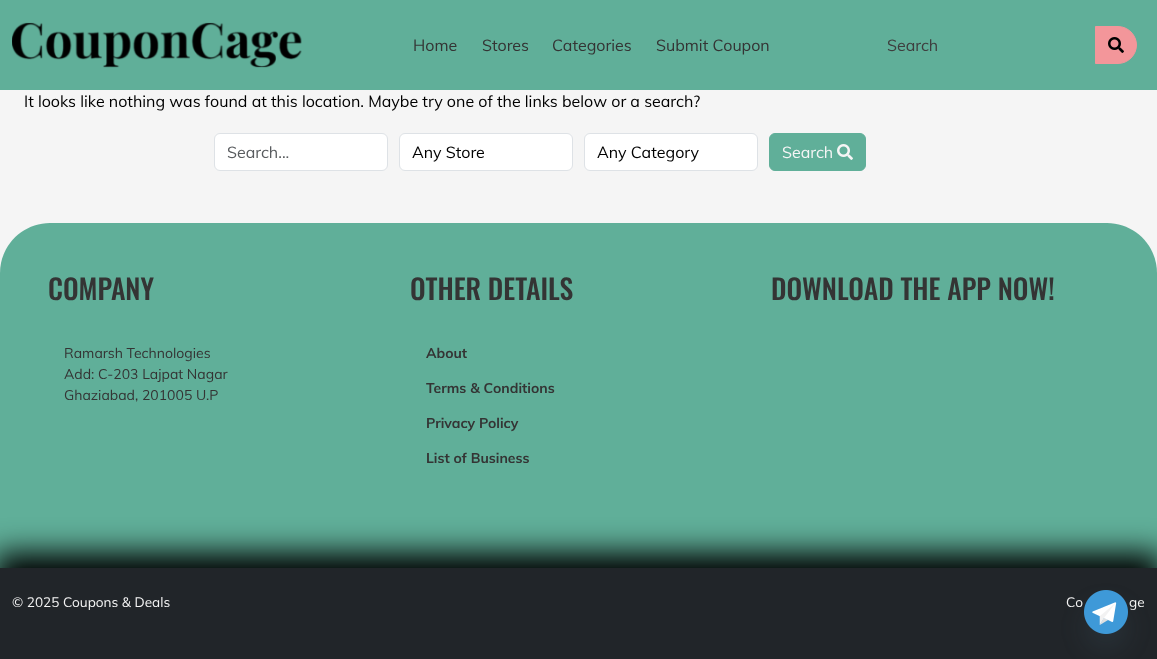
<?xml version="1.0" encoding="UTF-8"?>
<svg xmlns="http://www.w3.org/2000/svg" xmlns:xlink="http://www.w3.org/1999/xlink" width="1157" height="659">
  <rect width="100%" height="100%" fill="#f5f5f5" />
  <rect width="1157" height="90" fill="#60af99" />
  <image x="12" y="22" width="290" height="46" xlink:href="image1.png" />
  <path d="M 1095.5 26.5 h 22.5 c 10 0 18.5 8.5 18.5 18.5 c 0 10 -8.5 18.5 -18.5 18.5 h -22.5 z" fill="#f3969a" stroke="#f3969a" />
  <image x="1108" y="37" width="16" height="16" xlink:href="image2.png" />
  <rect x="214.5" y="133.5" width="173" height="37" rx="5.5" fill="#ffffff" stroke="#dee2e6" />
  <rect x="399.5" y="133.5" width="173" height="37" rx="5.5" fill="#ffffff" stroke="#dee2e6" />
  <rect x="584.5" y="133.5" width="173" height="37" rx="5.5" fill="#ffffff" stroke="#dee2e6" />
  <rect x="769.5" y="133.5" width="96" height="37" rx="5.5" fill="#60af99" stroke="#60af99" />
  <image x="837" y="144" width="16" height="16" xlink:href="image3.png" />
  <path d="M 50 223 h 1057 c 27.5 0 50 22.5 50 50 v 295 h -1157 v -295 c 0 -27.5 22.5 -50 50 -50 z" fill="#60af99" />
  <rect x="-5" y="553" width="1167" height="102" fill="#000000" filter="blur(15px)" />
  <rect y="568" width="1157" height="91" fill="#212529" />
  <rect x="1084" y="606" width="44" height="44" rx="22" fill="#49687e" fill-opacity="0.16" filter="blur(12px)" />
  <image x="1084" y="590" width="44" height="44" xlink:href="image4.png" />
  <text x="413" y="51" style="font-family: Muli; font-size: 16px; fill: #343434">Home</text>
  <text x="482" y="51" style="font-family: Muli; font-size: 16px; fill: #343434">Stores</text>
  <text x="552" y="51" style="font-family: Muli; font-size: 16px; fill: #343434">Categories</text>
  <text x="656" y="51" style="font-family: Muli; font-size: 16px; fill: #343434">Submit Coupon</text>
  <text x="887" y="51" style="font-family: Muli; font-size: 16px; fill: #3e3e3e">Search</text>
  <text x="24" y="107" style="font-family: Muli; font-size: 16px; fill: #000000">It looks like nothing was found at this location. Maybe try one of the links below or a search?</text>
  <text x="227" y="158" style="font-family: Muli; font-size: 16px; fill: #595c5f">Search...</text>
  <text x="412" y="158" style="font-family: Muli; font-size: 16px; fill: #000000">Any Store</text>
  <text x="597" y="158" style="font-family: Muli; font-size: 16px; fill: #000000">Any Category</text>
  <text x="782" y="158" style="font-family: Muli; font-size: 16px; fill: #f5f5f5">Search</text>
  <text x="48" y="300" style="font-family: Oswald; font-size: 27.75px; font-weight: 500; fill: #343434">COMPANY</text>
  <text x="64" y="358" style="font-family: Muli; font-size: 14px; fill: #343434">Ramarsh Technologies</text>
  <text x="64" y="379" style="font-family: Muli; font-size: 14px; fill: #343434">Add: C-203 Lajpat Nagar</text>
  <text x="64" y="400" style="font-family: Muli; font-size: 14px; fill: #343434">Ghaziabad, 201005 U.P</text>
  <text x="410" y="300" style="font-family: Oswald; font-size: 27.75px; font-weight: 500; fill: #343434">OTHER DETAILS</text>
  <text x="426" y="358" style="font-family: Muli; font-size: 14px; font-weight: bold; fill: #343434">About</text>
  <text x="426" y="393" style="font-family: Muli; font-size: 14px; font-weight: bold; fill: #343434">Terms &amp; Conditions</text>
  <text x="426" y="428" style="font-family: Muli; font-size: 14px; font-weight: bold; fill: #343434">Privacy Policy</text>
  <text x="426" y="463" style="font-family: Muli; font-size: 14px; font-weight: bold; fill: #343434">List of Business</text>
  <text x="771" y="300" style="font-family: Oswald; font-size: 27.75px; font-weight: 500; fill: #343434">DOWNLOAD THE APP NOW!</text>
  <text x="12" y="607" style="font-family: Muli; font-size: 13.6px; fill: #f5f5f5">© 2025 Coupons &amp; Deals</text>
  <text x="1066" y="607" style="font-family: Muli; font-size: 13.6px; fill: #f5f5f5">Co</text>
  <text x="1129" y="607" style="font-family: Muli; font-size: 13.6px; fill: #f5f5f5">ge</text>
</svg>
